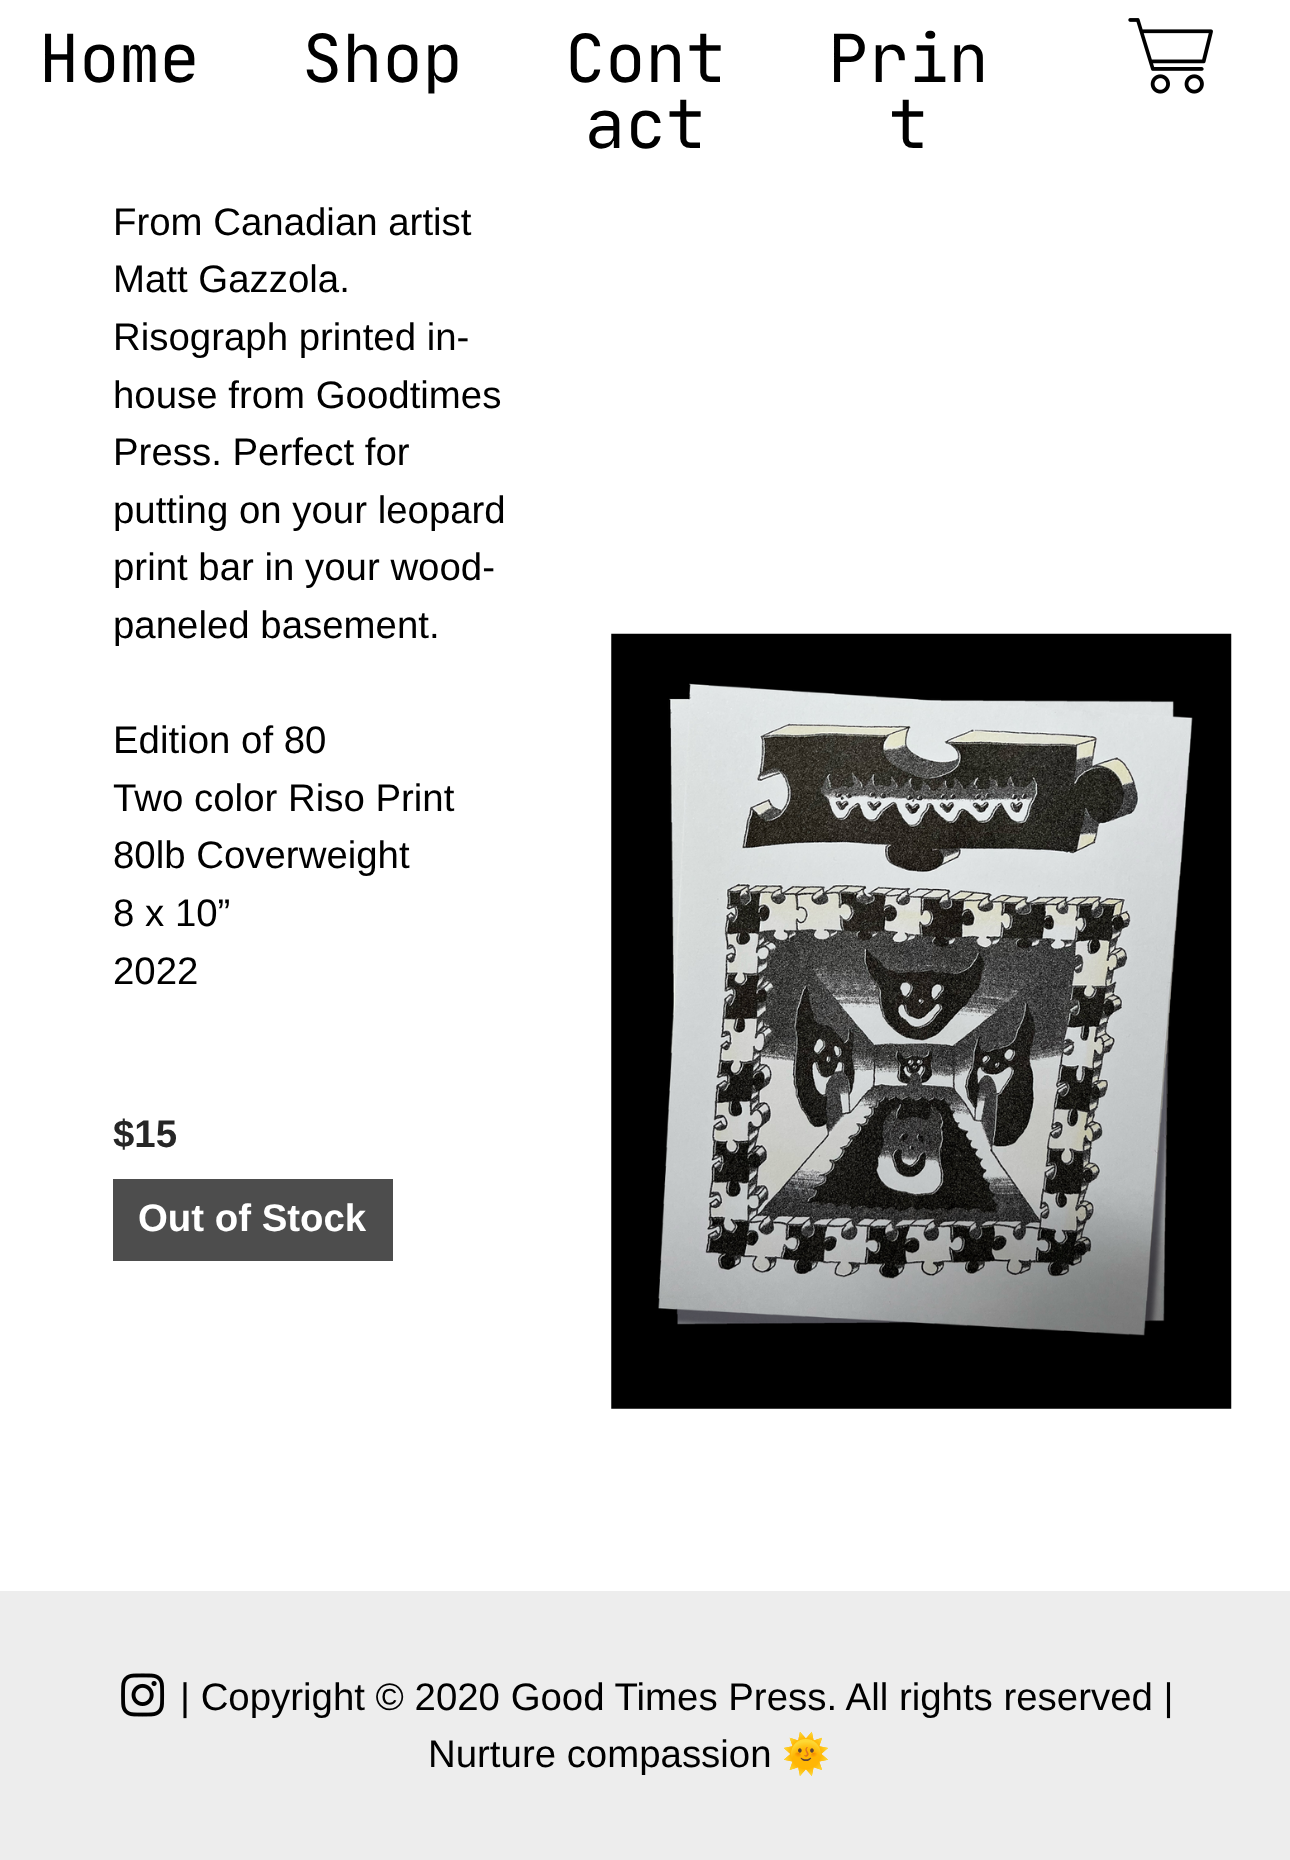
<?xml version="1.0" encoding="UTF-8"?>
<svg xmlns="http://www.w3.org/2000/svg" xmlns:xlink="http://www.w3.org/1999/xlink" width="1290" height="1860">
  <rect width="100%" height="100%" fill="#ffffff" />
  <image x="1128" y="18" width="85" height="76" xlink:href="image1.png" />
  <rect x="113" y="1179" width="280" height="82" fill="#4d4d4d" />
  <image x="611" y="633" width="621" height="776" xlink:href="image2.png" />
  <rect y="1591" width="1290" height="269" fill="#ededed" />
  <image x="121" y="1673" width="44" height="44" xlink:href="image3.png" />
  <text x="39" y="82" style="font-family: JetBrains Mono; font-size: 67px; fill: #000000">Home</text>
  <text x="302" y="82" style="font-family: JetBrains Mono; font-size: 67px; fill: #000000">Shop</text>
  <text x="565" y="82" style="font-family: JetBrains Mono; font-size: 67px; fill: #000000">Cont</text>
  <text x="585" y="148" style="font-family: JetBrains Mono; font-size: 67px; fill: #000000">act</text>
  <text x="828" y="82" style="font-family: JetBrains Mono; font-size: 67px; fill: #000000">Prin</text>
  <text x="888" y="148" style="font-family: JetBrains Mono; font-size: 67px; fill: #000000">t</text>
  <text x="113" y="235" style="font-family: Liberation Sans; font-size: 38.4px; fill: #000000">From Canadian artist</text>
  <text x="113" y="292" style="font-family: Liberation Sans; font-size: 38.4px; fill: #000000">Matt Gazzola.</text>
  <text x="113" y="350" style="font-family: Liberation Sans; font-size: 38.4px; fill: #000000">Risograph printed in-</text>
  <text x="113" y="408" style="font-family: Liberation Sans; font-size: 38.4px; fill: #000000">house from Goodtimes</text>
  <text x="113" y="465" style="font-family: Liberation Sans; font-size: 38.4px; fill: #000000">Press. Perfect for</text>
  <text x="113" y="523" style="font-family: Liberation Sans; font-size: 38.4px; fill: #000000">putting on your leopard</text>
  <text x="113" y="580" style="font-family: Liberation Sans; font-size: 38.4px; fill: #000000">print bar in your wood-</text>
  <text x="113" y="638" style="font-family: Liberation Sans; font-size: 38.4px; fill: #000000">paneled basement.</text>
  <text x="113" y="753" style="font-family: Liberation Sans; font-size: 38.4px; fill: #000000">Edition of 80</text>
  <text x="113" y="811" style="font-family: Liberation Sans; font-size: 38.4px; fill: #000000">Two color Riso Print</text>
  <text x="113" y="868" style="font-family: Liberation Sans; font-size: 38.4px; fill: #000000">80lb Coverweight</text>
  <text x="113" y="926" style="font-family: Liberation Sans; font-size: 38.4px; fill: #000000">8 x 10”</text>
  <text x="113" y="984" style="font-family: Liberation Sans; font-size: 38.4px; fill: #000000">2022</text>
  <text x="113" y="1147" style="font-family: Liberation Sans; font-size: 38.4px; font-weight: bold; fill: #262626">$15</text>
  <text x="138" y="1231" style="font-family: Liberation Sans; font-size: 38.4px; font-weight: bold; fill: #ffffff">Out of Stock</text>
  <text x="180" y="1710" style="font-family: Liberation Sans; font-size: 38.4px; fill: #000000">| Copyright © 2020 Good Times Press. All rights reserved |</text>
  <text x="428" y="1767" style="font-family: Liberation Sans; font-size: 38.4px; fill: #000000">Nurture compassion</text>
  <text x="782" y="1767" style="font-family: Noto Color Emoji; font-size: 38.4px; fill: #000000">🌞️</text>
</svg>
